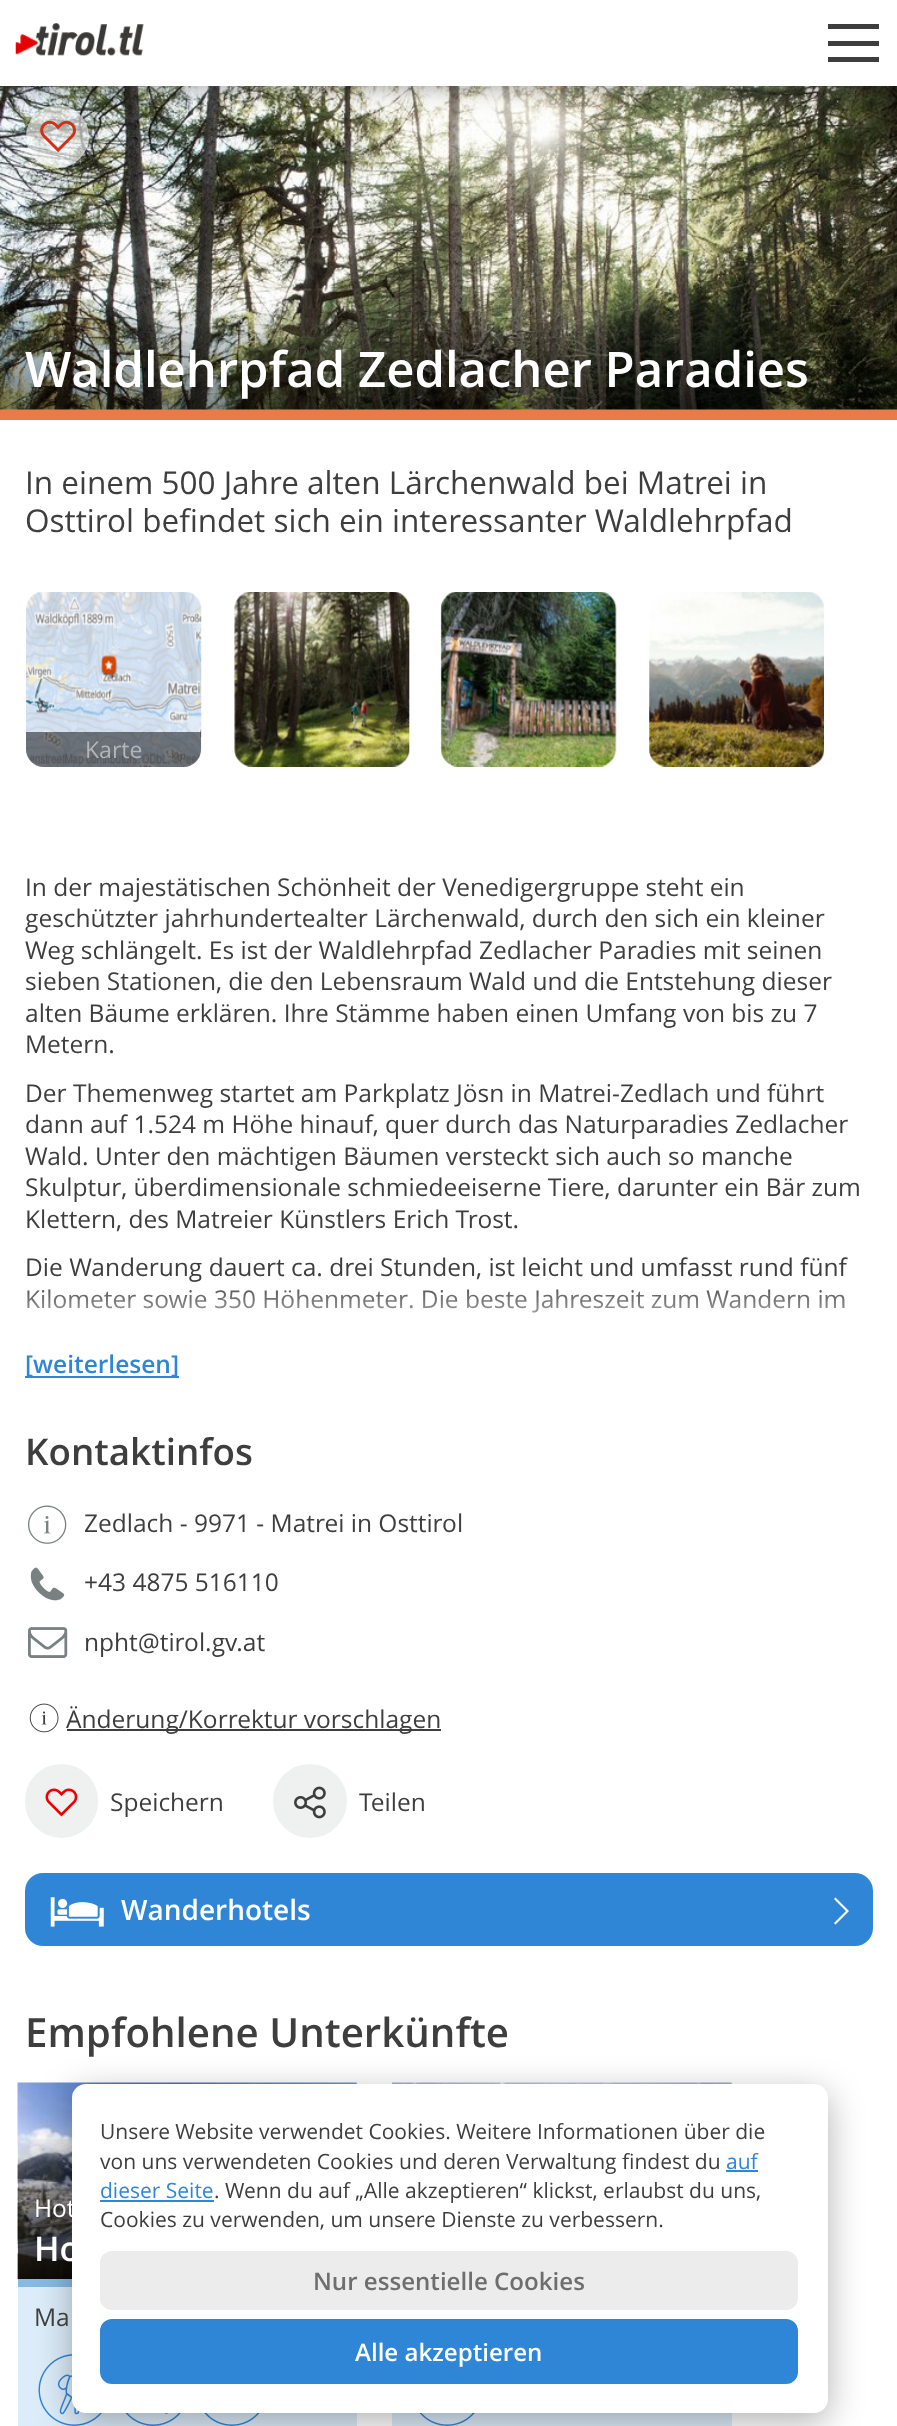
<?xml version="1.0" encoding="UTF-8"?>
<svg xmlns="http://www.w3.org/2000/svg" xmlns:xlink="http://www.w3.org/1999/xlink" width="897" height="2426">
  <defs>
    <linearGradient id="g1" gradientUnits="userSpaceOnUse" x1="449" y1="304" x2="449" y2="410"><stop offset="0" stop-color="#000000" stop-opacity="0" /><stop offset="1" stop-color="#000000" stop-opacity="0.4" /></linearGradient>
    <linearGradient id="g2" gradientUnits="userSpaceOnUse" x1="187" y1="2135" x2="187" y2="2279"><stop offset="0" stop-color="#000000" stop-opacity="0" /><stop offset="1" stop-color="#000000" stop-opacity="0.85" /></linearGradient>
    <linearGradient id="g3" gradientUnits="userSpaceOnUse" x1="449" y1="1279" x2="449" y2="1381"><stop offset="0" stop-color="#ffffff" stop-opacity="0" /><stop offset="0.7" stop-color="#ffffff" /><stop offset="1" stop-color="#ffffff" /></linearGradient>
  </defs>
  <rect width="100%" height="100%" fill="#ffffff" />
  <image x="0" y="86" width="897" height="324" xlink:href="image3.png" />
  <circle cx="57.5" cy="136.5" r="31.5" fill="#ffffff" fill-opacity="0.6" />
  <image x="40" y="120" width="36" height="33" xlink:href="image2.png" />
  <rect width="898" height="86" fill="#3a3938" fill-opacity="0.5" filter="blur(12px)" />
  <rect width="897" height="86" fill="#ffffff" />
  <image x="15" y="23" width="129" height="33" xlink:href="image1.png" />
  <path d="M 828 24 v 5 h 51 v -5 z m 0 17 v 5 h 51 v -5 z m 0 16 v 5 h 51 v -5 z" fill="#3e3e3f" />
  <rect y="410" width="897" height="10" fill="#e87b4b" />
  <rect y="310" width="897" height="100" fill="url(#g1)" />
  <image x="26" y="592" width="176" height="175" xlink:href="image4.png" />
  <path d="M 26 732 h 175 v 17.5 c 0 9.5 -8 17.5 -17.5 17.5 h -140 c -9.5 0 -17.5 -8 -17.5 -17.5 z" fill="#000000" fill-opacity="0.5" />
  <image x="234" y="592" width="176" height="175" xlink:href="image5.png" />
  <image x="440" y="592" width="177" height="175" xlink:href="image6.png" />
  <image x="649" y="592" width="175" height="175" xlink:href="image7.png" />
  <rect x="25" y="1376" width="154" height="2" fill="#2f86d7" />
  <image x="28" y="1505" width="39" height="39" xlink:href="image8.png" />
  <image x="30" y="1567" width="35" height="34" xlink:href="image9.png" />
  <image x="28" y="1627" width="40" height="31" xlink:href="image10.png" />
  <image x="29" y="1703" width="30" height="30" xlink:href="image11.png" />
  <rect x="67" y="1729" width="374" height="2" fill="#3e3e3f" />
  <rect x="27" y="1766" width="69" height="70" rx="34.5" fill="#eff0f0" stroke="#eff0f0" stroke-width="4" />
  <image x="45" y="1788" width="33" height="29" xlink:href="image12.png" />
  <circle cx="310" cy="1801" r="35" fill="#eff0f0" stroke="#eff0f0" stroke-width="4" />
  <image x="294" y="1786" width="32" height="33" xlink:href="image13.png" />
  <rect x="25" y="1873" width="848" height="73" rx="18" fill="#2f86d7" />
  <image x="50" y="1897" width="54" height="30" xlink:href="image14.png" />
  <path d="M 835.5 1924.5 l -1.5 -1.5 l 12 -12 l -12 -12 l 1.5 -1.5 l 13.5 13.5 z" fill="#ffffff" />
  <rect x="18" y="2083" width="339" height="343" fill="#dcecf9" />
  <rect x="18" y="2279" width="54" height="8" fill="#85bbe3" />
  <image x="17" y="2082" width="340" height="197" xlink:href="image15.png" />
  <rect x="18" y="2139" width="54" height="140" fill="url(#g2)" />
  <image x="38" y="2354" width="64" height="72" xlink:href="image16.png" />
  <image x="125" y="2413" width="56" height="13" xlink:href="image17.png" />
  <image x="204" y="2413" width="56" height="13" xlink:href="image18.png" />
  <rect x="392" y="2413" width="340" height="13" fill="#dcecf9" />
  <rect x="730" y="2083" width="2" height="1" fill="#cbe2f5" />
  <image x="392" y="2082" width="340" height="2" xlink:href="image19.png" />
  <image x="419" y="2413" width="56" height="13" xlink:href="image20.png" />
  <rect x="72" y="2093" width="756" height="329" rx="14" fill="#000000" fill-opacity="0.3" filter="blur(17.5px)" />
  <rect x="72" y="2084" width="756" height="329" rx="14" fill="#ffffff" />
  <rect x="726" y="2170" width="32" height="2" fill="#2f86d7" />
  <rect x="100" y="2200" width="114" height="2" fill="#2f86d7" />
  <rect x="100" y="2251" width="698" height="59" rx="12" fill="#ececec" />
  <rect x="101" y="2320" width="696" height="63" rx="11" fill="#2f86d7" stroke="#2f86d7" stroke-width="2" />
  <text x="25" y="387" style="font-family: Open Sans; font-size: 49px; font-weight: 600; fill: #ffffff">Waldlehrpfad Zedlacher Paradies</text>
  <text x="25" y="494" style="font-family: Open Sans; font-size: 31.5px; fill: #3e3e3f">In einem 500 Jahre alten Lärchenwald bei Matrei in</text>
  <text x="25" y="532" style="font-family: Open Sans; font-size: 31.5px; fill: #3e3e3f">Osttirol befindet sich ein interessanter Waldlehrpfad</text>
  <text x="85" y="758" style="font-family: Open Sans; font-size: 23px; fill: #b3b6b9">Karte</text>
  <text x="25" y="896" style="font-family: Open Sans; font-size: 24.5px; fill: #3e3e3f">In der majestätischen Schönheit der Venedigergruppe steht ein</text>
  <text x="25" y="927" style="font-family: Open Sans; font-size: 24.5px; fill: #3e3e3f">geschützter jahrhundertealter Lärchenwald, durch den sich ein kleiner</text>
  <text x="25" y="959" style="font-family: Open Sans; font-size: 24.5px; fill: #3e3e3f">Weg schlängelt. Es ist der Waldlehrpfad Zedlacher Paradies mit seinen</text>
  <text x="25" y="990" style="font-family: Open Sans; font-size: 24.5px; fill: #3e3e3f">sieben Stationen, die den Lebensraum Wald und die Entstehung dieser</text>
  <text x="25" y="1022" style="font-family: Open Sans; font-size: 24.5px; fill: #3e3e3f">alten Bäume erklären. Ihre Stämme haben einen Umfang von bis zu 7</text>
  <text x="25" y="1053" style="font-family: Open Sans; font-size: 24.5px; fill: #3e3e3f">Metern.</text>
  <text x="25" y="1102" style="font-family: Open Sans; font-size: 24.5px; fill: #3e3e3f">Der Themenweg startet am Parkplatz Jösn in Matrei-Zedlach und führt</text>
  <text x="25" y="1133" style="font-family: Open Sans; font-size: 24.5px; fill: #3e3e3f">dann auf 1.524 m Höhe hinauf, quer durch das Naturparadies Zedlacher</text>
  <text x="25" y="1165" style="font-family: Open Sans; font-size: 24.5px; fill: #3e3e3f">Wald. Unter den mächtigen Bäumen versteckt sich auch so manche</text>
  <text x="25" y="1196" style="font-family: Open Sans; font-size: 24.5px; fill: #3e3e3f">Skulptur, überdimensionale schmiedeeiserne Tiere, darunter ein Bär zum</text>
  <text x="25" y="1228" style="font-family: Open Sans; font-size: 24.5px; fill: #3e3e3f">Klettern, des Matreier Künstlers Erich Trost.</text>
  <text x="25" y="1276" style="font-family: Open Sans; font-size: 24.5px; fill: #3e3e3f">Die Wanderung dauert ca. drei Stunden, ist leicht und umfasst rund fünf</text>
  <text x="25" y="1308" style="font-family: Open Sans; font-size: 24.5px; fill: #3e3e3f">Kilometer sowie 350 Höhenmeter. Die beste Jahreszeit zum Wandern im</text>
  <rect x="26" y="1281" width="818" height="32" fill="url(#g3)" />
  <text x="25" y="1373" style="font-family: Open Sans; font-size: 24.5px; font-weight: 600; fill: #2f86d7">[weiterlesen]</text>
  <text x="25" y="1465" style="font-family: Open Sans; font-size: 36.75px; font-weight: 600; fill: #3e3e3f">Kontaktinfos</text>
  <text x="84" y="1532" style="font-family: Open Sans; font-size: 24.5px; fill: #3e3e3f">Zedlach - 9971 - Matrei in Osttirol</text>
  <text x="84" y="1591" style="font-family: Open Sans; font-size: 24.5px; fill: #3e3e3f">+43 4875 516110</text>
  <text x="84" y="1651" style="font-family: Open Sans; font-size: 24.5px; fill: #3e3e3f">npht@tirol.gv.at</text>
  <text x="66" y="1728" style="font-family: Open Sans; font-size: 24.5px; fill: #3e3e3f">Änderung/Korrektur vorschlagen</text>
  <text x="110" y="1811" style="font-family: Open Sans; font-size: 24.5px; fill: #3e3e3f">Speichern</text>
  <text x="359" y="1811" style="font-family: Open Sans; font-size: 24.5px; fill: #3e3e3f">Teilen</text>
  <text x="121" y="1920" style="font-family: Open Sans; font-size: 28px; font-weight: 600; fill: #ffffff">Wanderhotels</text>
  <text x="25" y="2047" style="font-family: Open Sans; font-size: 40.25px; font-weight: 600; fill: #3e3e3f">Empfohlene Unterkünfte</text>
  <text x="34" y="2217" style="font-family: Open Sans; font-size: 24.5px; fill: #ffffff">Hot</text>
  <text x="34" y="2261" style="font-family: Open Sans; font-size: 34px; font-weight: 600; fill: #ffffff">Ho</text>
  <text x="34" y="2326" style="font-family: Open Sans; font-size: 24.5px; fill: #3e3e3f">Ma</text>
  <text x="100" y="2139" style="font-family: Open Sans; font-size: 21px; fill: #3e3e3f">Unsere Website verwendet Cookies. Weitere Informationen über die</text>
  <text x="100" y="2169" style="font-family: Open Sans; font-size: 21px; fill: #3e3e3f">von uns verwendeten Cookies und deren Verwaltung findest du</text>
  <text x="726" y="2169" style="font-family: Open Sans; font-size: 21px; fill: #2f86d7">auf</text>
  <text x="100" y="2198" style="font-family: Open Sans; font-size: 21px; fill: #2f86d7">dieser Seite</text>
  <text x="214" y="2198" style="font-family: Open Sans; font-size: 21px; fill: #3e3e3f">. Wenn du auf „Alle akzeptieren“ klickst, erlaubst du uns,</text>
  <text x="100" y="2227" style="font-family: Open Sans; font-size: 21px; fill: #3e3e3f">Cookies zu verwenden, um unsere Dienste zu verbessern.</text>
  <text x="313" y="2290" style="font-family: Open Sans; font-size: 24.1px; font-weight: 600; fill: #6e6e6f">Nur essentielle Cookies</text>
  <text x="355" y="2361" style="font-family: Open Sans; font-size: 24.1px; font-weight: 600; fill: #ffffff">Alle akzeptieren</text>
</svg>
